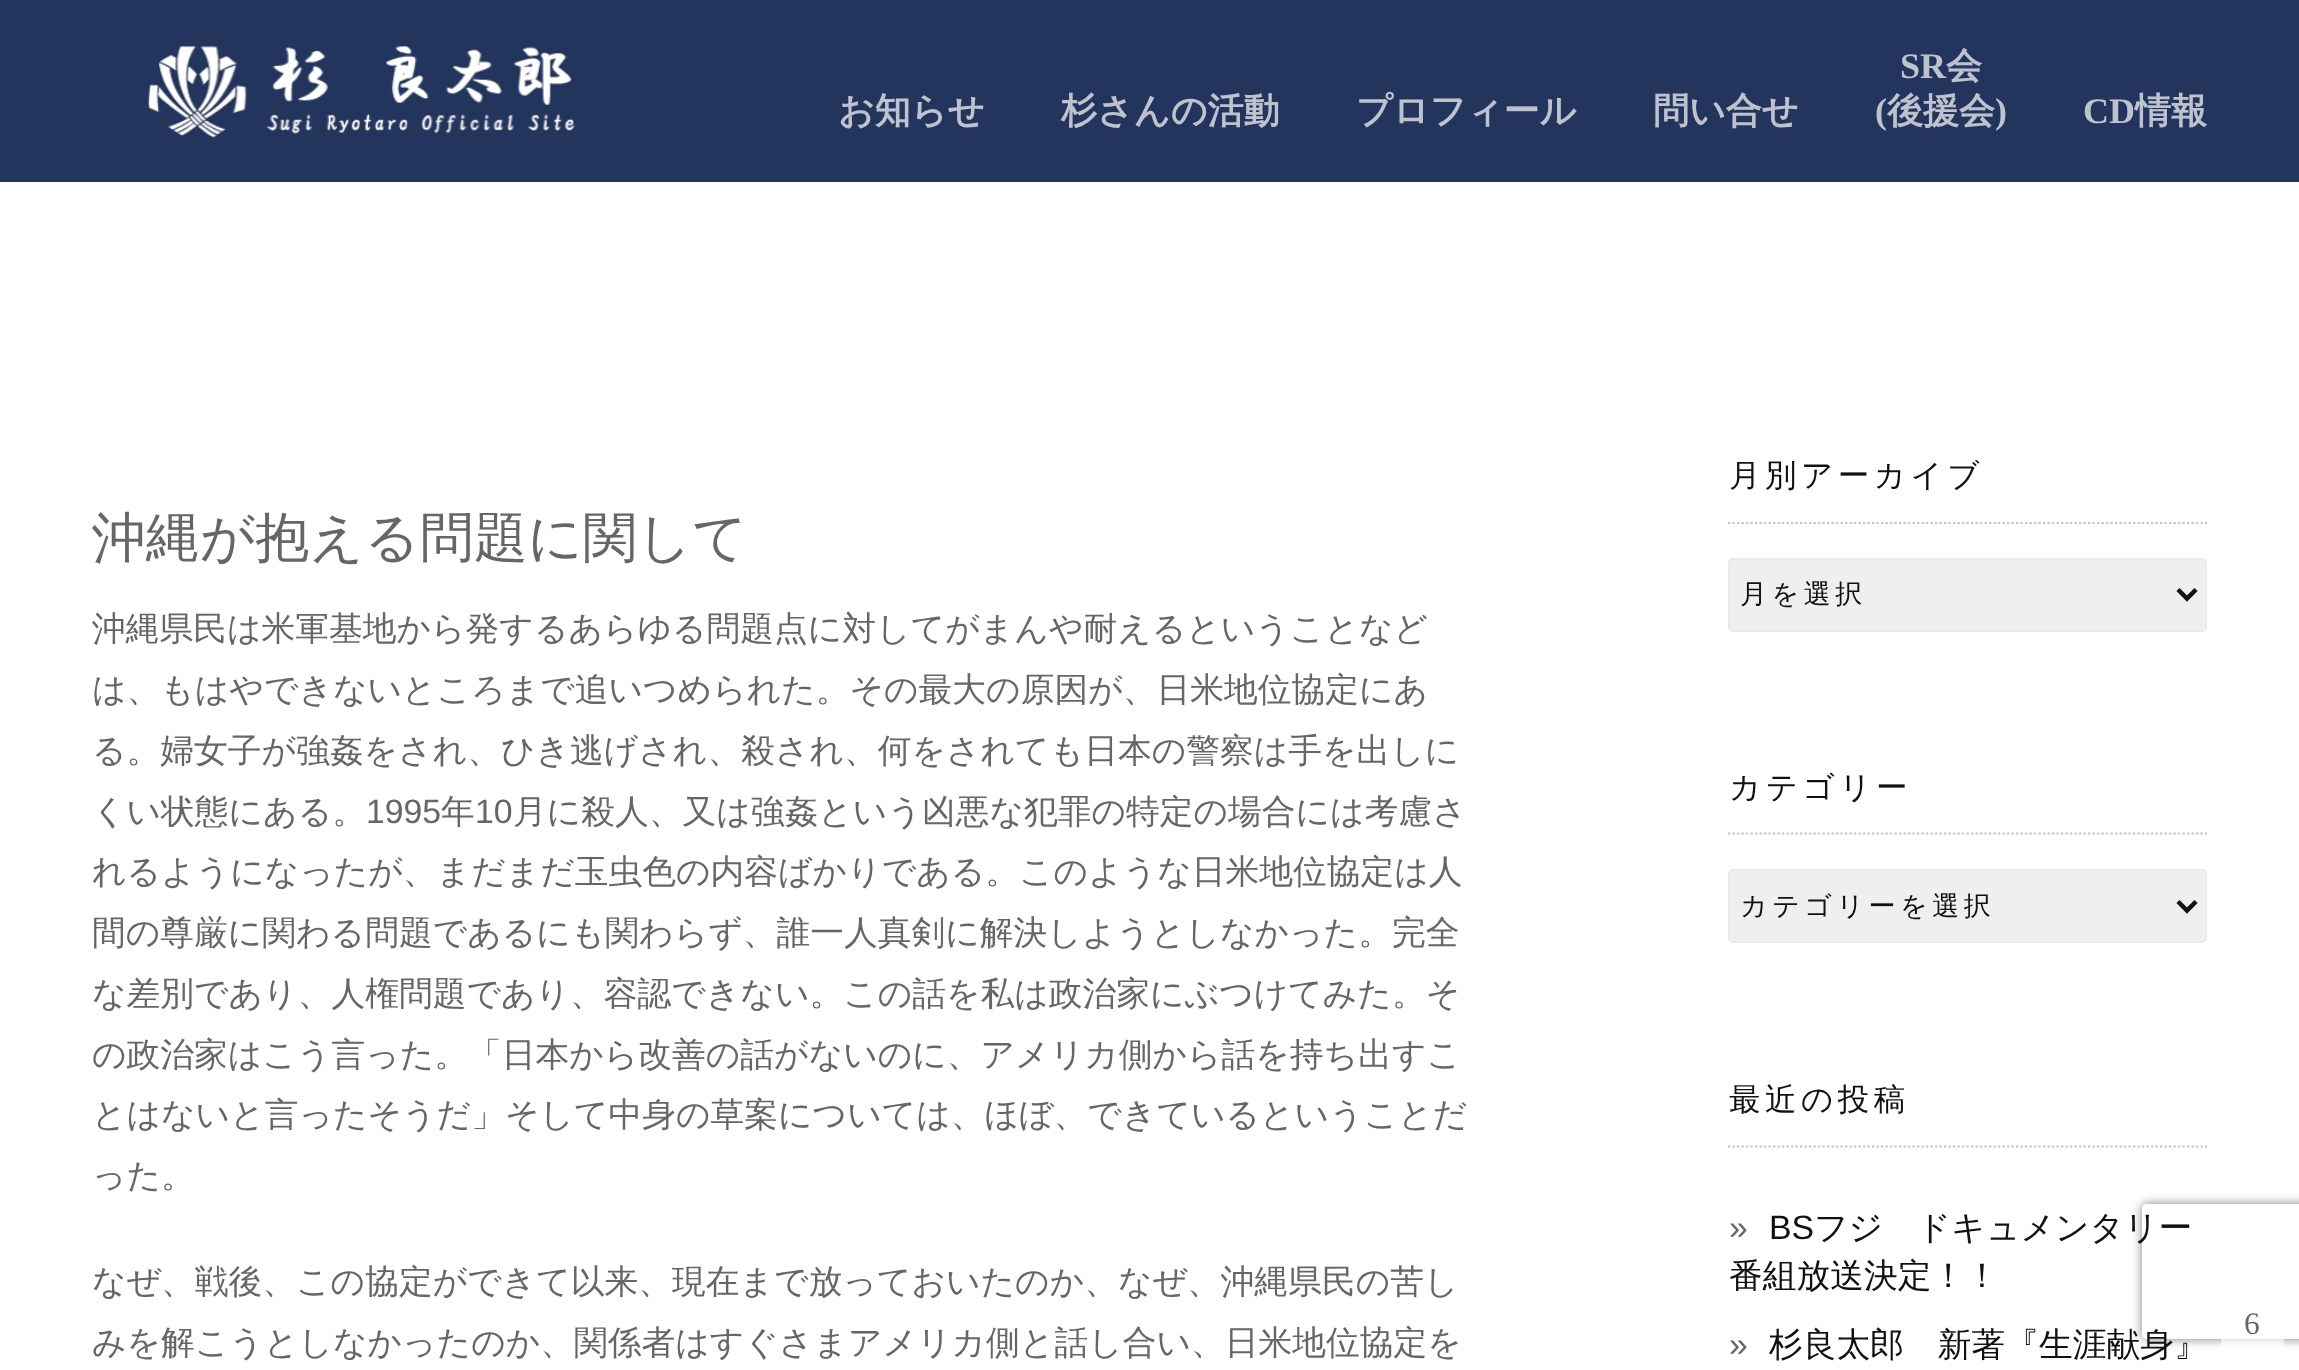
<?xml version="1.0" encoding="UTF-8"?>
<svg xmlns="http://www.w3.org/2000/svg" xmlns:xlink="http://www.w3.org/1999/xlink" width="2299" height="1370">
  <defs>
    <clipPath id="clip1"><path d="M 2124 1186 h 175 v 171 h -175 z m 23 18 h 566 c 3 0 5 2 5 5 v 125 c 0 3 -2 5 -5 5 h -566 c -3 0 -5 -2 -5 -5 v -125 c 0 -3 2 -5 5 -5 z" clip-rule="evenodd" /></clipPath>
  </defs>
  <rect width="100%" height="100%" fill="#ffffff" />
  <rect width="2299" height="182" fill="#24355d" />
  <image x="148" y="46" width="427" height="92" xlink:href="image1.png" />
  <path d="M 1728 523 h 479" fill="none" stroke="#c2c2c2" stroke-width="2.2" stroke-dasharray="2.25 2.25" />
  <rect x="1729" y="559" width="477" height="72" rx="4" fill="#efefef" stroke="#eaeaea" stroke-width="2" />
  <path d="M 2178 589.5 l 9 9 l 9 -9" fill="none" stroke="#111111" stroke-width="4.5" />
  <path d="M 1728 833.5 h 479" fill="none" stroke="#c2c2c2" stroke-width="2.2" stroke-dasharray="2.25 2.25" />
  <rect x="1729" y="870" width="477" height="72" rx="4" fill="#efefef" stroke="#eaeaea" stroke-width="2" />
  <path d="M 2178 901.5 l 9 9 l 9 -9" fill="none" stroke="#111111" stroke-width="4.5" />
  <path d="M 1728 1146.5 h 479" fill="none" stroke="#c2c2c2" stroke-width="2.2" stroke-dasharray="2.25 2.25" />
  <g clip-path="url(#clip1)">
    <rect x="2142" y="1204" width="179" height="135" rx="5" fill="#808080" filter="blur(5.5px)" />
  </g>
  <rect x="2221" y="1292" width="63" height="63" rx="5" fill="#ffffff" fill-opacity="0.6" />
  <text x="838" y="123" style="font-family: WenQuanYi Zen Hei; font-size: 36px; font-weight: bold; fill: #bdc2ce">お知らせ</text>
  <text x="1061" y="123" style="font-family: WenQuanYi Zen Hei; font-size: 36px; font-weight: bold; fill: #bdc2ce">杉さんの活動</text>
  <text x="1356" y="123" style="font-family: WenQuanYi Zen Hei; font-size: 36px; font-weight: bold; fill: #bdc2ce">プロフィール</text>
  <text x="1653" y="123" style="font-family: WenQuanYi Zen Hei; font-size: 36px; font-weight: bold; fill: #bdc2ce">問い合せ</text>
  <text x="1900" y="78" style="font-family: Liberation Serif; font-size: 36px; font-weight: bold; fill: #bdc2ce">SR</text>
  <text x="1946" y="78" style="font-family: WenQuanYi Zen Hei; font-size: 36px; font-weight: bold; fill: #bdc2ce">会</text>
  <text x="1875" y="123" style="font-family: Liberation Serif; font-size: 36px; font-weight: bold; fill: #bdc2ce">(</text>
  <text x="1887" y="123" style="font-family: WenQuanYi Zen Hei; font-size: 36px; font-weight: bold; fill: #bdc2ce">後援会</text>
  <text x="1995" y="123" style="font-family: Liberation Serif; font-size: 36px; font-weight: bold; fill: #bdc2ce">)</text>
  <text x="2083" y="123" style="font-family: Liberation Serif; font-size: 36px; font-weight: bold; fill: #bdc2ce">CD</text>
  <text x="2135" y="123" style="font-family: WenQuanYi Zen Hei; font-size: 36px; font-weight: bold; fill: #bdc2ce">情報</text>
  <text x="92" y="556" style="font-family: WenQuanYi Zen Hei; font-size: 54px; font-weight: 500; fill: #666666">沖縄が抱える問題に関して</text>
  <text x="92" y="640" style="font-family: WenQuanYi Zen Hei; font-size: 33.75px; font-weight: 500; fill: #666666">沖縄県民は米軍基地から発するあらゆる問題点に対してがまんや耐えるということなど</text>
  <text x="92" y="701" style="font-family: WenQuanYi Zen Hei; font-size: 33.75px; font-weight: 500; fill: #666666">は、もはやできないところまで追いつめられた。その最大の原因が、日米地位協定にあ</text>
  <text x="92" y="762" style="font-family: WenQuanYi Zen Hei; font-size: 33.75px; font-weight: 500; fill: #666666">る。婦女子が強姦をされ、ひき逃げされ、殺され、何をされても日本の警察は手を出しに</text>
  <text x="92" y="823" style="font-family: WenQuanYi Zen Hei; font-size: 33.75px; font-weight: 500; fill: #666666">くい状態にある。</text>
  <text x="366" y="823" style="font-family: Liberation Sans; font-size: 33.75px; fill: #666666">1995</text>
  <text x="441" y="823" style="font-family: WenQuanYi Zen Hei; font-size: 33.75px; font-weight: 500; fill: #666666">年</text>
  <text x="475" y="823" style="font-family: Liberation Sans; font-size: 33.75px; fill: #666666">10</text>
  <text x="513" y="823" style="font-family: WenQuanYi Zen Hei; font-size: 33.75px; font-weight: 500; fill: #666666">月に殺人、又は強姦という凶悪な犯罪の特定の場合には考慮さ</text>
  <text x="92" y="883" style="font-family: WenQuanYi Zen Hei; font-size: 33.75px; font-weight: 500; fill: #666666">れるようになったが、まだまだ玉虫色の内容ばかりである。このような日米地位協定は人</text>
  <text x="92" y="944" style="font-family: WenQuanYi Zen Hei; font-size: 33.75px; font-weight: 500; fill: #666666">間の尊厳に関わる問題であるにも関わらず、誰一人真剣に解決しようとしなかった。完全</text>
  <text x="92" y="1005" style="font-family: WenQuanYi Zen Hei; font-size: 33.75px; font-weight: 500; fill: #666666">な差別であり、人権問題であり、容認できない。この話を私は政治家にぶつけてみた。そ</text>
  <text x="92" y="1066" style="font-family: WenQuanYi Zen Hei; font-size: 33.75px; font-weight: 500; fill: #666666">の政治家はこう言った。「日本から改善の話がないのに、アメリカ側から話を持ち出すこ</text>
  <text x="92" y="1126" style="font-family: WenQuanYi Zen Hei; font-size: 33.75px; font-weight: 500; fill: #666666">とはないと言ったそうだ」そして中身の草案については、ほぼ、できているということだ</text>
  <text x="92" y="1187" style="font-family: WenQuanYi Zen Hei; font-size: 33.75px; font-weight: 500; fill: #666666">った。</text>
  <text x="92" y="1293" style="font-family: WenQuanYi Zen Hei; font-size: 33.75px; font-weight: 500; fill: #666666">なぜ、戦後、この協定ができて以来、現在まで放っておいたのか、なぜ、沖縄県民の苦し</text>
  <text x="92" y="1354" style="font-family: WenQuanYi Zen Hei; font-size: 33.75px; font-weight: 500; fill: #666666">みを解こうとしなかったのか、関係者はすぐさまアメリカ側と話し合い、日米地位協定を</text>
  <text x="1729" y="486" style="font-family: WenQuanYi Zen Hei; font-size: 31.5px; font-weight: 500; letter-spacing: 4.5px; fill: #111111">月別アーカイブ</text>
  <text x="1740" y="603" style="font-family: WenQuanYi Zen Hei; font-size: 27px; font-weight: 500; letter-spacing: 4.5px; fill: #111111">月を選択</text>
  <text x="1729" y="798" style="font-family: WenQuanYi Zen Hei; font-size: 31.5px; font-weight: 500; letter-spacing: 4.5px; fill: #111111">カテゴリー</text>
  <text x="1740" y="915" style="font-family: WenQuanYi Zen Hei; font-size: 27px; font-weight: 500; letter-spacing: 4.5px; fill: #111111">カテゴリーを選択</text>
  <text x="1729" y="1110" style="font-family: WenQuanYi Zen Hei; font-size: 31.5px; font-weight: 500; letter-spacing: 4.5px; fill: #111111">最近の投稿</text>
  <text x="1729" y="1239" style="font-family: Liberation Sans; font-size: 33.75px; fill: #666666">»</text>
  <text x="1769" y="1239" style="font-family: Liberation Sans; font-size: 33.75px; fill: #111111">BS</text>
  <text x="1814" y="1239" style="font-family: WenQuanYi Zen Hei; font-size: 33.75px; font-weight: 500; fill: #111111">フジ　ドキュメンタリー</text>
  <text x="1729" y="1287" style="font-family: WenQuanYi Zen Hei; font-size: 33.75px; font-weight: 500; fill: #111111">番組放送決定！！</text>
  <text x="1729" y="1356" style="font-family: Liberation Sans; font-size: 33.75px; fill: #666666">»</text>
  <text x="1769" y="1356" style="font-family: WenQuanYi Zen Hei; font-size: 33.75px; font-weight: 500; fill: #111111">杉良太郎　新著『生涯献身』</text>
  <text x="2244" y="1334" style="font-family: Liberation Serif; font-size: 31.5px; fill: #666666">6</text>
</svg>
